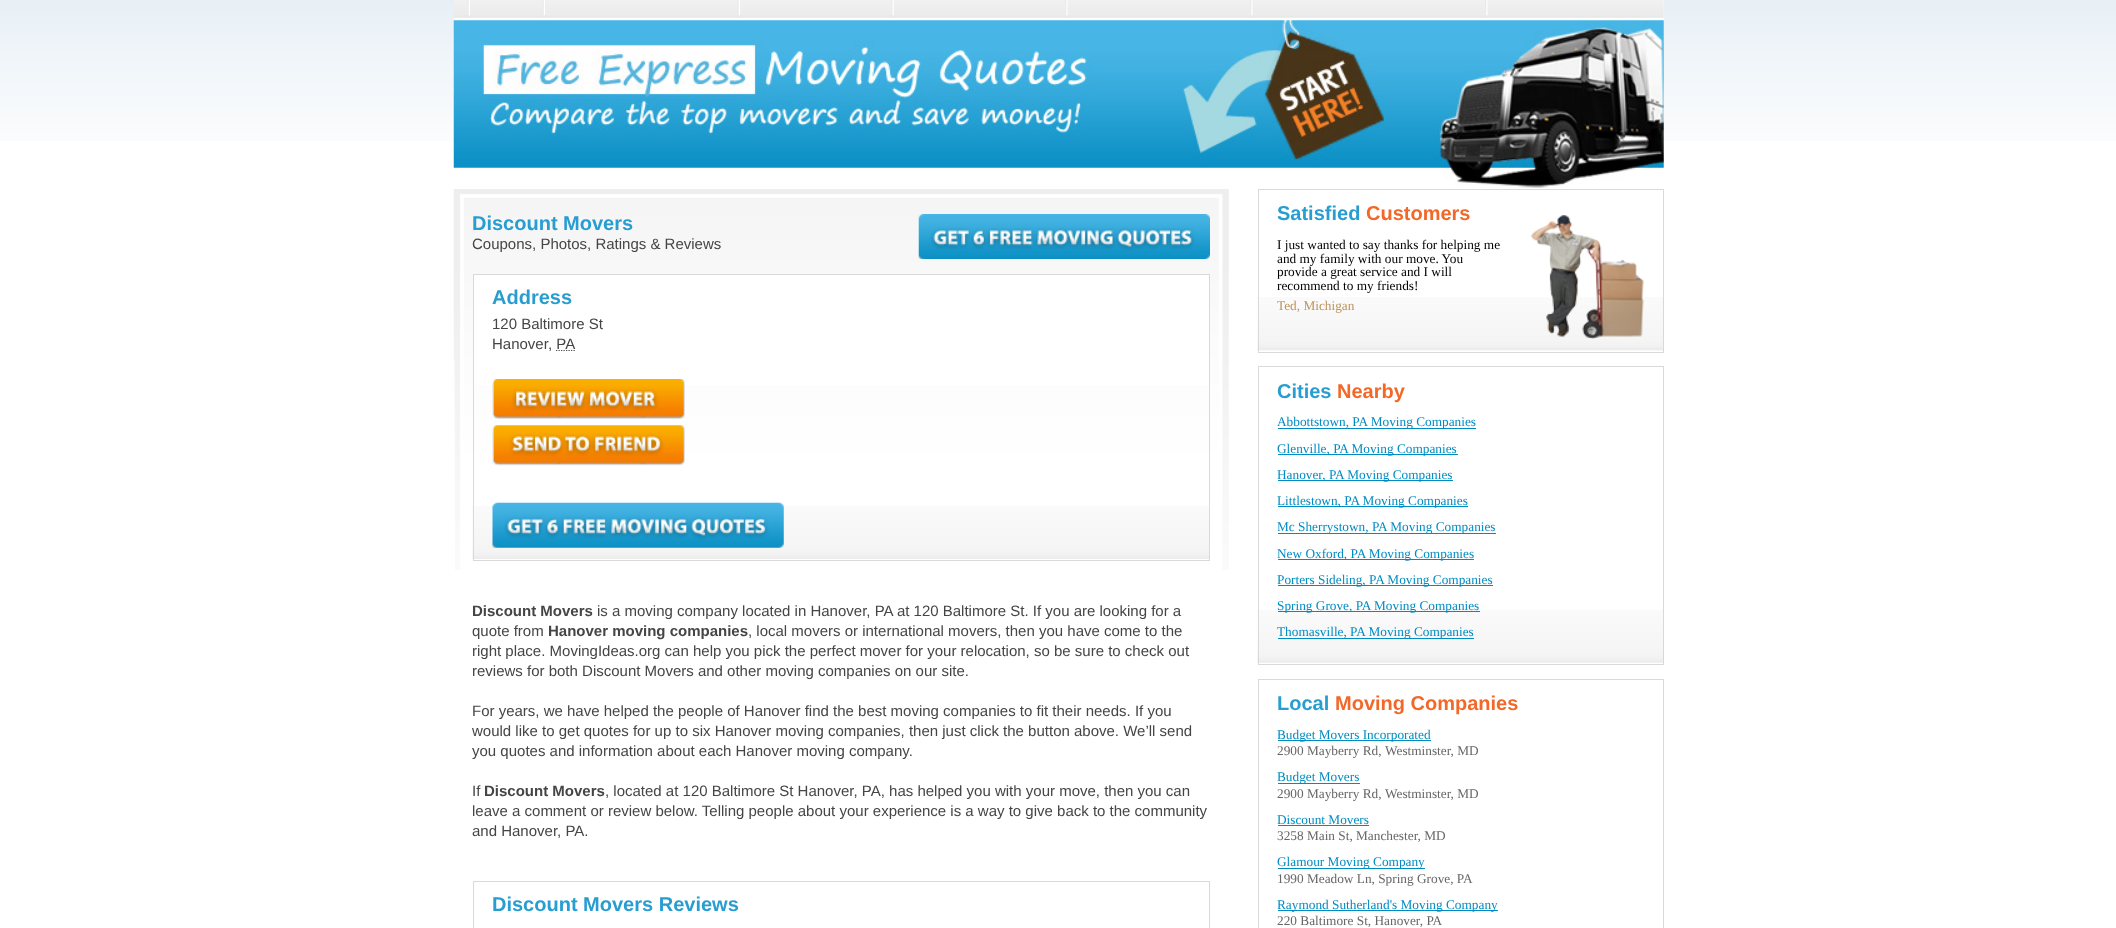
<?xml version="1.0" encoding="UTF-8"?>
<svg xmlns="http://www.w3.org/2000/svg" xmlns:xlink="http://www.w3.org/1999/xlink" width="2116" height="928">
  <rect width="100%" height="100%" fill="#ffffff" />
  <image x="0" y="0" width="2116" height="141" xlink:href="image1.png" />
  <rect x="454" width="1210" height="141" fill="#ffffff" />
  <image x="454" y="0" width="1210" height="18" xlink:href="image2.png" />
  <image x="467" y="0" width="3" height="18" xlink:href="image3.png" />
  <image x="542" y="0" width="3" height="18" xlink:href="image3.png" />
  <image x="737" y="0" width="3" height="18" xlink:href="image3.png" />
  <image x="891" y="0" width="3" height="18" xlink:href="image4.png" />
  <image x="1065" y="0" width="3" height="18" xlink:href="image5.png" />
  <image x="1250" y="0" width="3" height="18" xlink:href="image5.png" />
  <image x="1485" y="0" width="3" height="18" xlink:href="image5.png" />
  <image x="453" y="20" width="1211" height="168" xlink:href="image6.png" />
  <image x="453" y="189" width="776" height="381" xlink:href="image7.png" />
  <image x="918" y="214" width="292" height="45" xlink:href="image8.png" />
  <rect x="474" y="275" width="735" height="110" fill="#ffffff" />
  <image x="472" y="506" width="737" height="53" xlink:href="image9.png" />
  <rect x="473.5" y="274.5" width="736" height="286" fill="none" stroke="#d9d9d9" />
  <path d="M 556 350.5 h 19" fill="none" stroke="#454545" stroke-width="1.2" stroke-dasharray="1.25 1.25" />
  <image x="492" y="379" width="193" height="40" xlink:href="image10.png" />
  <image x="492" y="425" width="193" height="41" xlink:href="image11.png" />
  <image x="492" y="502" width="292" height="46" xlink:href="image12.png" />
  <rect x="473.5" y="881.5" width="736" height="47" fill="none" stroke="#d9d9d9" />
  <image x="1257" y="297" width="406" height="54" xlink:href="image13.png" />
  <rect x="1258.5" y="189.5" width="405" height="163" fill="none" stroke="#d9d9d9" />
  <image x="1531" y="215" width="113" height="124" xlink:href="image14.png" />
  <image x="1257" y="610" width="406" height="53" xlink:href="image15.png" />
  <rect x="1258.5" y="366.5" width="405" height="298" fill="none" stroke="#d9d9d9" />
  <rect x="1278" y="428" width="198" height="1" fill="#008cc3" />
  <rect x="1278" y="454" width="180" height="1" fill="#008cc3" />
  <rect x="1278" y="480" width="175" height="1" fill="#008cc3" />
  <rect x="1278" y="506" width="190" height="1" fill="#008cc3" />
  <rect x="1278" y="533" width="218" height="1" fill="#008cc3" />
  <rect x="1278" y="559" width="196" height="1" fill="#008cc3" />
  <rect x="1278" y="585" width="215" height="1" fill="#008cc3" />
  <rect x="1278" y="611" width="202" height="1" fill="#008cc3" />
  <rect x="1278" y="638" width="196" height="1" fill="#008cc3" />
  <rect x="1258.5" y="679.5" width="405" height="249" fill="none" stroke="#d9d9d9" />
  <rect x="1278" y="740" width="153" height="1" fill="#008cc3" />
  <rect x="1278" y="783" width="82" height="1" fill="#008cc3" />
  <rect x="1278" y="825" width="91" height="1" fill="#008cc3" />
  <rect x="1278" y="868" width="147" height="1" fill="#008cc3" />
  <rect x="1278" y="910" width="220" height="1" fill="#008cc3" />
  <text x="472" y="230" style="font-family: Liberation Sans; font-size: 20px; font-weight: bold; fill: #279dd1">Discount Movers</text>
  <text x="472" y="249" style="font-family: Liberation Sans; font-size: 15px; fill: #454545">Coupons, Photos, Ratings &amp; Reviews</text>
  <text x="492" y="304" style="font-family: Liberation Sans; font-size: 20px; font-weight: bold; fill: #279dd1">Address</text>
  <text x="492" y="329" style="font-family: Liberation Sans; font-size: 15px; fill: #454545">120 Baltimore St</text>
  <text x="492" y="349" style="font-family: Liberation Sans; font-size: 15px; fill: #454545">Hanover</text>
  <text x="548" y="349" style="font-family: Liberation Sans; font-size: 15px; fill: #454545">, PA</text>
  <text x="472" y="616" style="font-family: Liberation Sans; font-size: 15px; font-weight: bold; fill: #454545">Discount Movers</text>
  <text x="597" y="616" style="font-family: Liberation Sans; font-size: 15px; fill: #454545">is a moving company located in Hanover, PA at 120 Baltimore St. If you are looking for a</text>
  <text x="472" y="636" style="font-family: Liberation Sans; font-size: 15px; fill: #454545">quote from</text>
  <text x="548" y="636" style="font-family: Liberation Sans; font-size: 15px; font-weight: bold; fill: #454545">Hanover moving companies</text>
  <text x="748" y="636" style="font-family: Liberation Sans; font-size: 15px; fill: #454545">, local movers or international movers, then you have come to the</text>
  <text x="472" y="656" style="font-family: Liberation Sans; font-size: 15px; fill: #454545">right place. MovingIdeas.org can help you pick the perfect mover for your relocation, so be sure to check out</text>
  <text x="472" y="676" style="font-family: Liberation Sans; font-size: 15px; fill: #454545">reviews for both Discount Movers and other moving companies on our site.</text>
  <text x="472" y="716" style="font-family: Liberation Sans; font-size: 15px; fill: #454545">For years, we have helped the people of Hanover find the best moving companies to fit their needs. If you</text>
  <text x="472" y="736" style="font-family: Liberation Sans; font-size: 15px; fill: #454545">would like to get quotes for up to six Hanover moving companies, then just click the button above. We’ll send</text>
  <text x="472" y="756" style="font-family: Liberation Sans; font-size: 15px; fill: #454545">you quotes and information about each Hanover moving company.</text>
  <text x="472" y="796" style="font-family: Liberation Sans; font-size: 15px; fill: #454545">If</text>
  <text x="484" y="796" style="font-family: Liberation Sans; font-size: 15px; font-weight: bold; fill: #454545">Discount Movers</text>
  <text x="605" y="796" style="font-family: Liberation Sans; font-size: 15px; fill: #454545">, located at 120 Baltimore St Hanover, PA, has helped you with your move, then you can</text>
  <text x="472" y="816" style="font-family: Liberation Sans; font-size: 15px; fill: #454545">leave a comment or review below. Telling people about your experience is a way to give back to the community</text>
  <text x="472" y="836" style="font-family: Liberation Sans; font-size: 15px; fill: #454545">and Hanover, PA.</text>
  <text x="492" y="911" style="font-family: Liberation Sans; font-size: 20px; font-weight: bold; fill: #279dd1">Discount Movers Reviews</text>
  <text x="1277" y="220" style="font-family: Liberation Sans; font-size: 20px; font-weight: bold; fill: #279dd1">Satisfied</text>
  <text x="1366" y="220" style="font-family: Liberation Sans; font-size: 20px; font-weight: bold; fill: #f26828">Customers</text>
  <text x="1277" y="249" style="font-family: Liberation Serif; font-size: 13.3px; fill: #000000">I just wanted to say thanks for helping me</text>
  <text x="1277" y="263" style="font-family: Liberation Serif; font-size: 13.3px; fill: #000000">and my family with our move. You</text>
  <text x="1277" y="276" style="font-family: Liberation Serif; font-size: 13.3px; fill: #000000">provide a great service and I will</text>
  <text x="1277" y="290" style="font-family: Liberation Serif; font-size: 13.3px; fill: #000000">recommend to my friends!</text>
  <text x="1277" y="310" style="font-family: Liberation Serif; font-size: 13.3px; fill: #bd935d">Ted, Michigan</text>
  <text x="1277" y="398" style="font-family: Liberation Sans; font-size: 20px; font-weight: bold; fill: #279dd1">Cities</text>
  <text x="1337" y="398" style="font-family: Liberation Sans; font-size: 20px; font-weight: bold; fill: #f26828">Nearby</text>
  <text x="1277" y="426" style="font-family: Liberation Serif; font-size: 13.3px; fill: #008cc3">Abbottstown, PA Moving Companies</text>
  <text x="1277" y="453" style="font-family: Liberation Serif; font-size: 13.3px; fill: #008cc3">Glenville, PA Moving Companies</text>
  <text x="1277" y="479" style="font-family: Liberation Serif; font-size: 13.3px; fill: #008cc3">Hanover, PA Moving Companies</text>
  <text x="1277" y="505" style="font-family: Liberation Serif; font-size: 13.3px; fill: #008cc3">Littlestown, PA Moving Companies</text>
  <text x="1277" y="531" style="font-family: Liberation Serif; font-size: 13.3px; fill: #008cc3">Mc Sherrystown, PA Moving Companies</text>
  <text x="1277" y="558" style="font-family: Liberation Serif; font-size: 13.3px; fill: #008cc3">New Oxford, PA Moving Companies</text>
  <text x="1277" y="584" style="font-family: Liberation Serif; font-size: 13.3px; fill: #008cc3">Porters Sideling, PA Moving Companies</text>
  <text x="1277" y="610" style="font-family: Liberation Serif; font-size: 13.3px; fill: #008cc3">Spring Grove, PA Moving Companies</text>
  <text x="1277" y="636" style="font-family: Liberation Serif; font-size: 13.3px; fill: #008cc3">Thomasville, PA Moving Companies</text>
  <text x="1277" y="710" style="font-family: Liberation Sans; font-size: 20px; font-weight: bold; fill: #279dd1">Local</text>
  <text x="1335" y="710" style="font-family: Liberation Sans; font-size: 20px; font-weight: bold; fill: #f26828">Moving Companies</text>
  <text x="1277" y="739" style="font-family: Liberation Serif; font-size: 13.3px; fill: #008cc3">Budget Movers Incorporated</text>
  <text x="1277" y="755" style="font-family: Liberation Serif; font-size: 13.3px; fill: #666666">2900 Mayberry Rd,</text>
  <text x="1385" y="755" style="font-family: Liberation Serif; font-size: 13.3px; fill: #666666">Westminster, MD</text>
  <text x="1277" y="781" style="font-family: Liberation Serif; font-size: 13.3px; fill: #008cc3">Budget Movers</text>
  <text x="1277" y="798" style="font-family: Liberation Serif; font-size: 13.3px; fill: #666666">2900 Mayberry Rd,</text>
  <text x="1385" y="798" style="font-family: Liberation Serif; font-size: 13.3px; fill: #666666">Westminster, MD</text>
  <text x="1277" y="824" style="font-family: Liberation Serif; font-size: 13.3px; fill: #008cc3">Discount Movers</text>
  <text x="1277" y="840" style="font-family: Liberation Serif; font-size: 13.3px; fill: #666666">3258 Main St, Manchester, MD</text>
  <text x="1277" y="866" style="font-family: Liberation Serif; font-size: 13.3px; fill: #008cc3">Glamour Moving Company</text>
  <text x="1277" y="883" style="font-family: Liberation Serif; font-size: 13.3px; fill: #666666">1990 Meadow Ln, Spring Grove, PA</text>
  <text x="1277" y="909" style="font-family: Liberation Serif; font-size: 13.3px; fill: #008cc3">Raymond Sutherland's Moving Company</text>
  <text x="1277" y="925" style="font-family: Liberation Serif; font-size: 13.3px; fill: #666666">220 Baltimore St, Hanover, PA</text>
</svg>
